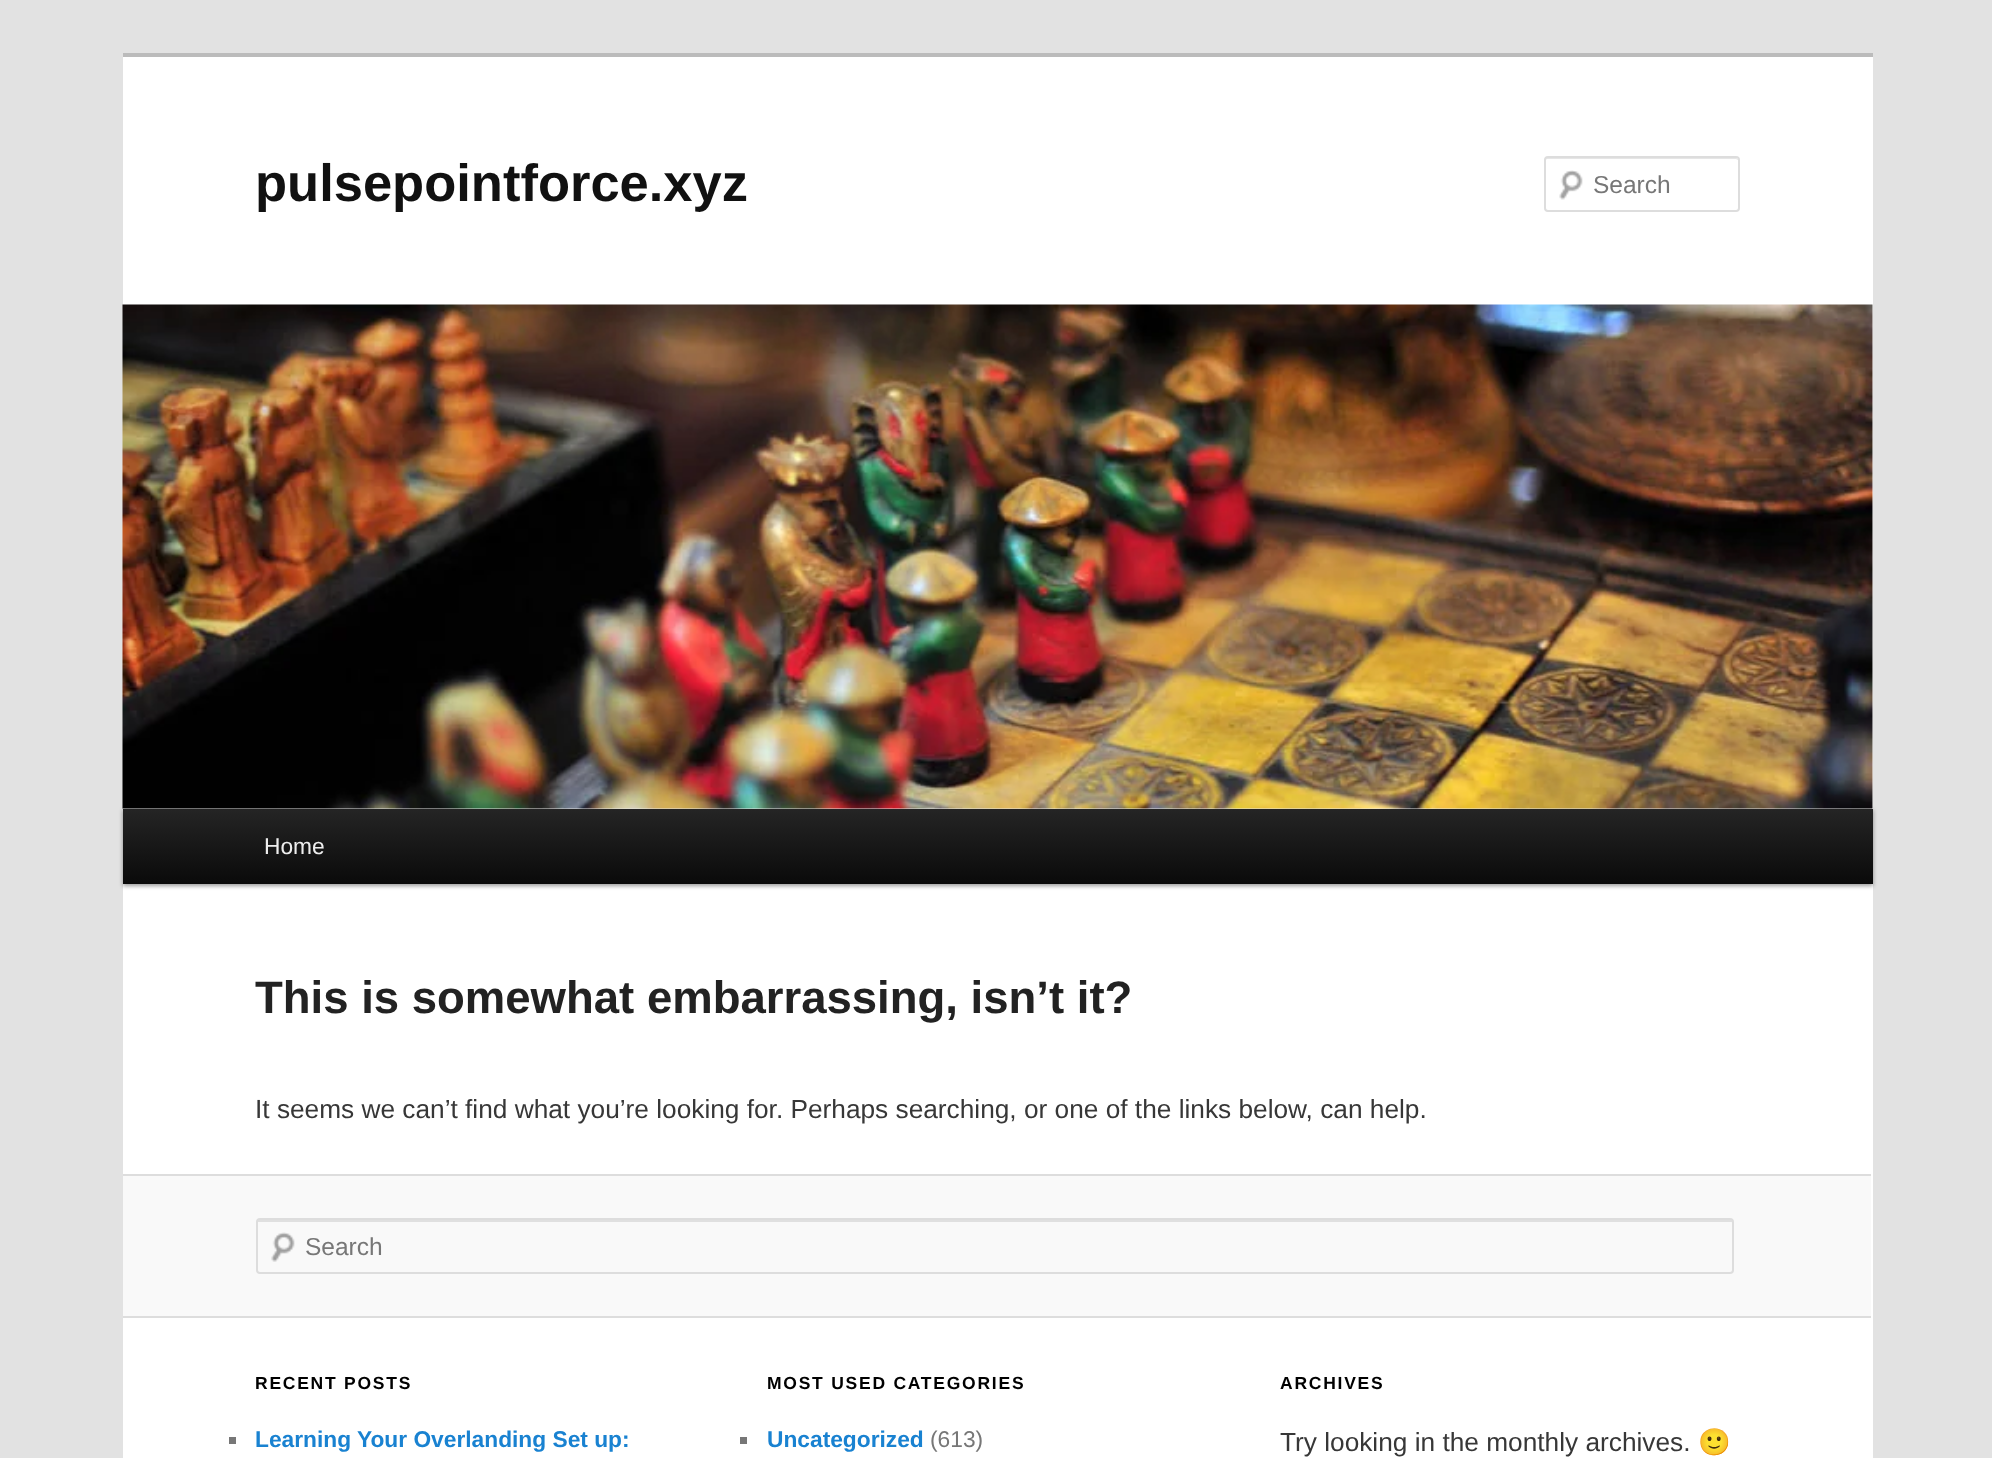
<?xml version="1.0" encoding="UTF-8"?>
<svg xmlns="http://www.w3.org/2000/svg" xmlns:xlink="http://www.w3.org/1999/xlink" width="1992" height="1458">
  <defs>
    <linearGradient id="g1" gradientUnits="userSpaceOnUse" x1="998" y1="808" x2="998" y2="884"><stop offset="0" stop-color="#252525" /><stop offset="1" stop-color="#0a0a0a" /></linearGradient>
  </defs>
  <rect width="100%" height="100%" fill="#e2e2e2" />
  <rect x="123" y="57" width="1750" height="1401" fill="#ffffff" />
  <rect x="123" y="53" width="1750" height="4" fill="#bbbbbb" />
  <image x="1559" y="170" width="24" height="30" xlink:href="image1.png" />
  <path d="M 1547 159 h 189 l 2 1 v 1 v -1 c 0 -1 -1 -2 -2 -2 h -189 c -1 0 -2 1 -2 2 v 1 c 0 -1 1 -2 2 -2 z" fill="#e6e6e6" />
  <rect x="1545" y="157" width="194" height="54" rx="3" fill="none" stroke="#dddddd" stroke-width="2" />
  <rect x="123" y="810" width="1750" height="76" fill="#000000" fill-opacity="0.4" filter="blur(2px)" />
  <image x="122" y="304" width="1751" height="505" xlink:href="image2.png" />
  <rect x="123" y="809" width="1750" height="75" fill="url(#g1)" />
  <rect x="123" y="1176" width="1748" height="140" fill="#f9f9f9" />
  <rect x="123" y="1174" width="1748" height="2" fill="#dddddd" />
  <rect x="123" y="1316" width="1748" height="2" fill="#dddddd" />
  <image x="271" y="1232" width="24" height="30" xlink:href="image3.png" />
  <path d="M 259 1222 h 1472 c 1 0 1 0 1 1 v 49 c 1 -1 1 -1 1 -2 v -48 c 0 -1 -1 -2 -2 -2 h -1472 c -1 0 -2 1 -2 2 v 1 c 0 -1 1 -1 2 -1 z" fill="#e0e0e0" />
  <rect x="257" y="1219" width="1476" height="54" rx="3" fill="none" stroke="#dddddd" stroke-width="2" />
  <rect x="229" y="1437" width="7" height="7" fill="#777777" />
  <rect x="740" y="1437" width="7" height="7" fill="#777777" />
  <text x="255" y="201" style="font-family: Liberation Sans; font-size: 52.5px; font-weight: bold; fill: #111111">pulsepointforce.xyz</text>
  <text x="1593" y="193" style="font-family: Liberation Sans; font-size: 24.5px; fill: #777777">Search</text>
  <text x="264" y="854" style="font-family: Liberation Sans; font-size: 22.75px; fill: #eeeeee">Home</text>
  <text x="255" y="1013" style="font-family: Liberation Sans; font-size: 45.5px; font-weight: bold; fill: #222222">This is somewhat embarrassing, isn’t it?</text>
  <text x="255" y="1118" style="font-family: Liberation Sans; font-size: 26.25px; fill: #373737">It seems we can’t find what you’re looking for. Perhaps searching, or one of the links below, can help.</text>
  <text x="305" y="1255" style="font-family: Liberation Sans; font-size: 24.5px; fill: #777777">Search</text>
  <text x="255" y="1389" style="font-family: Liberation Sans; font-size: 17.5px; font-weight: bold; letter-spacing: 1.75px; fill: #000000">RECENT POSTS</text>
  <text x="255" y="1447" style="font-family: Liberation Sans; font-size: 22.75px; font-weight: bold; fill: #1982d1">Learning Your Overlanding Set up:</text>
  <text x="767" y="1389" style="font-family: Liberation Sans; font-size: 17.5px; font-weight: bold; letter-spacing: 1.75px; fill: #000000">MOST USED CATEGORIES</text>
  <text x="767" y="1447" style="font-family: Liberation Sans; font-size: 22.75px; font-weight: bold; fill: #1982d1">Uncategorized</text>
  <text x="930" y="1447" style="font-family: Liberation Sans; font-size: 22.75px; fill: #777777">(613)</text>
  <text x="1280" y="1389" style="font-family: Liberation Sans; font-size: 17.5px; font-weight: bold; letter-spacing: 1.75px; fill: #000000">ARCHIVES</text>
  <text x="1280" y="1451" style="font-family: Liberation Sans; font-size: 26.25px; fill: #373737">Try looking in the monthly archives.</text>
  <text x="1698" y="1451" style="font-family: Noto Color Emoji; font-size: 26.25px; fill: #373737">🙂</text>
</svg>
